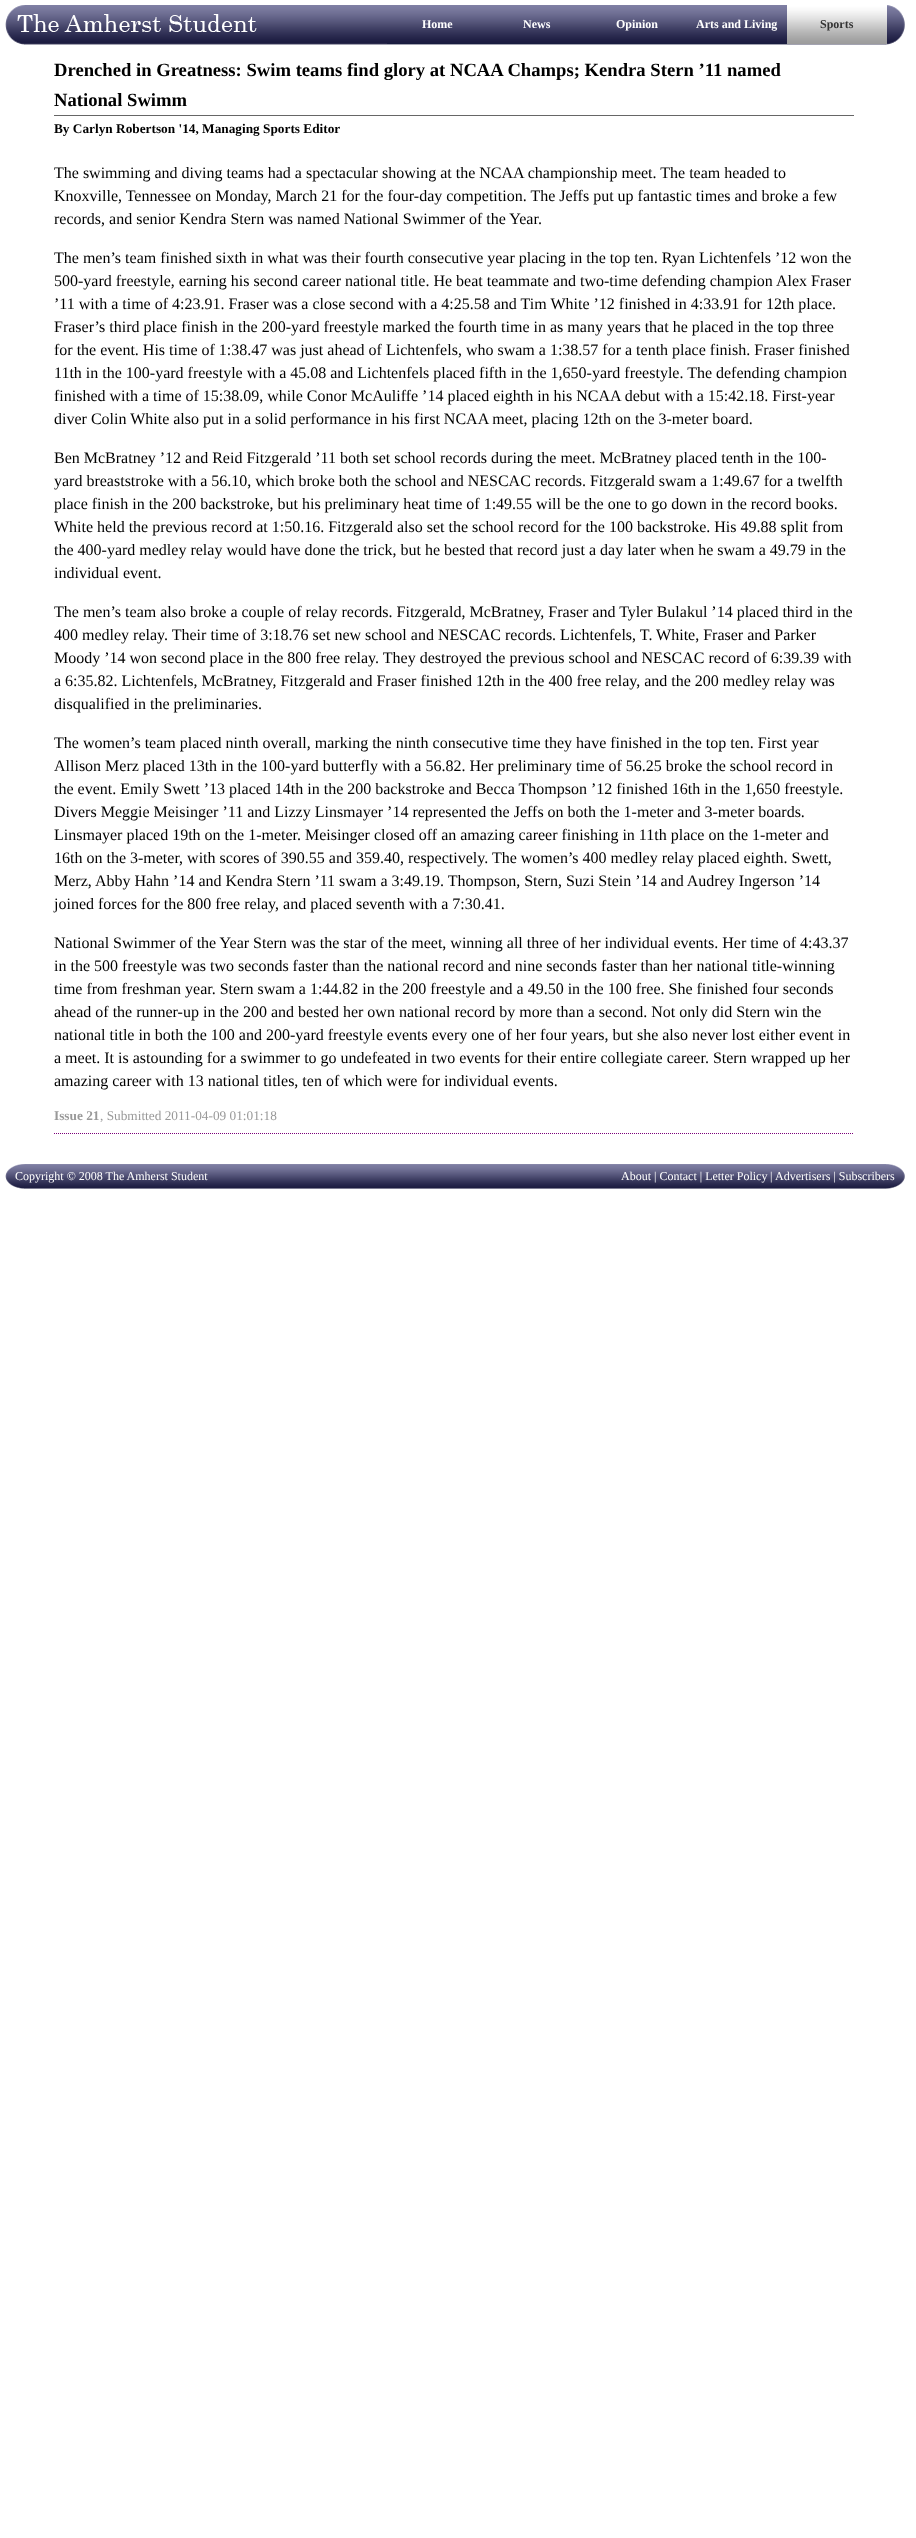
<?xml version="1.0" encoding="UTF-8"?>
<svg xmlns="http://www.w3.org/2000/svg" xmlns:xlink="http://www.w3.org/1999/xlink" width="916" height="2538">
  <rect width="100%" height="100%" fill="#ffffff" />
  <image x="5" y="5" width="900" height="40" xlink:href="image1.png" />
  <rect x="387" y="43" width="400" height="1" fill="#191d40" />
  <image x="787" y="5" width="100" height="39" xlink:href="image2.png" />
  <rect x="54" y="115" width="800" height="1" fill="#666666" />
  <path d="M 54 1133.5 h 800" fill="none" stroke="#7a007a" stroke-dasharray="1 1" />
  <image x="5" y="1164" width="900" height="25" xlink:href="image3.png" />
  <text x="422" y="28" style="font-family: Liberation Serif; font-size: 12px; font-weight: bold; fill: #ffffff">Home</text>
  <text x="523" y="28" style="font-family: Liberation Serif; font-size: 12px; font-weight: bold; fill: #ffffff">News</text>
  <text x="616" y="28" style="font-family: Liberation Serif; font-size: 12px; font-weight: bold; fill: #ffffff">Opinion</text>
  <text x="696" y="28" style="font-family: Liberation Serif; font-size: 12px; font-weight: bold; fill: #ffffff">Arts and Living</text>
  <text x="820" y="28" style="font-family: Liberation Serif; font-size: 12px; font-weight: bold; fill: #333333">Sports</text>
  <text x="54" y="76" style="font-family: Liberation Serif; font-size: 18.65px; font-weight: bold; fill: #000000">Drenched in Greatness: Swim teams find glory at NCAA Champs; Kendra Stern ’11 named</text>
  <text x="54" y="106" style="font-family: Liberation Serif; font-size: 18.65px; font-weight: bold; fill: #000000">National Swimm</text>
  <text x="54" y="133" style="font-family: Liberation Serif; font-size: 13.3px; font-weight: bold; fill: #000000">By Carlyn Robertson '14, Managing Sports Editor</text>
  <text x="54" y="178" style="font-family: Liberation Serif; font-size: 16px; fill: #000000">The swimming and diving teams had a spectacular showing at the NCAA championship meet. The team headed to</text>
  <text x="54" y="201" style="font-family: Liberation Serif; font-size: 16px; fill: #000000">Knoxville, Tennessee on Monday, March 21 for the four-day competition. The Jeffs put up fantastic times and broke a few</text>
  <text x="54" y="224" style="font-family: Liberation Serif; font-size: 16px; fill: #000000">records, and senior Kendra Stern was named National Swimmer of the Year.</text>
  <text x="54" y="263" style="font-family: Liberation Serif; font-size: 16px; fill: #000000">The men’s team finished sixth in what was their fourth consecutive year placing in the top ten. Ryan Lichtenfels ’12 won the</text>
  <text x="54" y="286" style="font-family: Liberation Serif; font-size: 16px; fill: #000000">500-yard freestyle, earning his second career national title. He beat teammate and two-time defending champion Alex Fraser</text>
  <text x="54" y="309" style="font-family: Liberation Serif; font-size: 16px; fill: #000000">’11 with a time of 4:23.91. Fraser was a close second with a 4:25.58 and Tim White ’12 finished in 4:33.91 for 12th place.</text>
  <text x="54" y="332" style="font-family: Liberation Serif; font-size: 16px; fill: #000000">Fraser’s third place finish in the 200-yard freestyle marked the fourth time in as many years that he placed in the top three</text>
  <text x="54" y="355" style="font-family: Liberation Serif; font-size: 16px; fill: #000000">for the event. His time of 1:38.47 was just ahead of Lichtenfels, who swam a 1:38.57 for a tenth place finish. Fraser finished</text>
  <text x="54" y="378" style="font-family: Liberation Serif; font-size: 16px; fill: #000000">11th in the 100-yard freestyle with a 45.08 and Lichtenfels placed fifth in the 1,650-yard freestyle. The defending champion</text>
  <text x="54" y="401" style="font-family: Liberation Serif; font-size: 16px; fill: #000000">finished with a time of 15:38.09, while Conor McAuliffe ’14 placed eighth in his NCAA debut with a 15:42.18. First-year</text>
  <text x="54" y="424" style="font-family: Liberation Serif; font-size: 16px; fill: #000000">diver Colin White also put in a solid performance in his first NCAA meet, placing 12th on the 3-meter board.</text>
  <text x="54" y="463" style="font-family: Liberation Serif; font-size: 16px; fill: #000000">Ben McBratney ’12 and Reid Fitzgerald ’11 both set school records during the meet. McBratney placed tenth in the 100-</text>
  <text x="54" y="486" style="font-family: Liberation Serif; font-size: 16px; fill: #000000">yard breaststroke with a 56.10, which broke both the school and NESCAC records. Fitzgerald swam a 1:49.67 for a twelfth</text>
  <text x="54" y="509" style="font-family: Liberation Serif; font-size: 16px; fill: #000000">place finish in the 200 backstroke, but his preliminary heat time of 1:49.55 will be the one to go down in the record books.</text>
  <text x="54" y="532" style="font-family: Liberation Serif; font-size: 16px; fill: #000000">White held the previous record at 1:50.16. Fitzgerald also set the school record for the 100 backstroke. His 49.88 split from</text>
  <text x="54" y="555" style="font-family: Liberation Serif; font-size: 16px; fill: #000000">the 400-yard medley relay would have done the trick, but he bested that record just a day later when he swam a 49.79 in the</text>
  <text x="54" y="578" style="font-family: Liberation Serif; font-size: 16px; fill: #000000">individual event.</text>
  <text x="54" y="617" style="font-family: Liberation Serif; font-size: 16px; fill: #000000">The men’s team also broke a couple of relay records. Fitzgerald, McBratney, Fraser and Tyler Bulakul ’14 placed third in the</text>
  <text x="54" y="640" style="font-family: Liberation Serif; font-size: 16px; fill: #000000">400 medley relay. Their time of 3:18.76 set new school and NESCAC records. Lichtenfels, T. White, Fraser and Parker</text>
  <text x="54" y="663" style="font-family: Liberation Serif; font-size: 16px; fill: #000000">Moody ’14 won second place in the 800 free relay. They destroyed the previous school and NESCAC record of 6:39.39 with</text>
  <text x="54" y="686" style="font-family: Liberation Serif; font-size: 16px; fill: #000000">a 6:35.82. Lichtenfels, McBratney, Fitzgerald and Fraser finished 12th in the 400 free relay, and the 200 medley relay was</text>
  <text x="54" y="709" style="font-family: Liberation Serif; font-size: 16px; fill: #000000">disqualified in the preliminaries.</text>
  <text x="54" y="748" style="font-family: Liberation Serif; font-size: 16px; fill: #000000">The women’s team placed ninth overall, marking the ninth consecutive time they have finished in the top ten. First year</text>
  <text x="54" y="771" style="font-family: Liberation Serif; font-size: 16px; fill: #000000">Allison Merz placed 13th in the 100-yard butterfly with a 56.82. Her preliminary time of 56.25 broke the school record in</text>
  <text x="54" y="794" style="font-family: Liberation Serif; font-size: 16px; fill: #000000">the event. Emily Swett ’13 placed 14th in the 200 backstroke and Becca Thompson ’12 finished 16th in the 1,650 freestyle.</text>
  <text x="54" y="817" style="font-family: Liberation Serif; font-size: 16px; fill: #000000">Divers Meggie Meisinger ’11 and Lizzy Linsmayer ’14 represented the Jeffs on both the 1-meter and 3-meter boards.</text>
  <text x="54" y="840" style="font-family: Liberation Serif; font-size: 16px; fill: #000000">Linsmayer placed 19th on the 1-meter. Meisinger closed off an amazing career finishing in 11th place on the 1-meter and</text>
  <text x="54" y="863" style="font-family: Liberation Serif; font-size: 16px; fill: #000000">16th on the 3-meter, with scores of 390.55 and 359.40, respectively. The women’s 400 medley relay placed eighth. Swett,</text>
  <text x="54" y="886" style="font-family: Liberation Serif; font-size: 16px; fill: #000000">Merz, Abby Hahn ’14 and Kendra Stern ’11 swam a 3:49.19. Thompson, Stern, Suzi Stein ’14 and Audrey Ingerson ’14</text>
  <text x="54" y="909" style="font-family: Liberation Serif; font-size: 16px; fill: #000000">joined forces for the 800 free relay, and placed seventh with a 7:30.41.</text>
  <text x="54" y="948" style="font-family: Liberation Serif; font-size: 16px; fill: #000000">National Swimmer of the Year Stern was the star of the meet, winning all three of her individual events. Her time of 4:43.37</text>
  <text x="54" y="971" style="font-family: Liberation Serif; font-size: 16px; fill: #000000">in the 500 freestyle was two seconds faster than the national record and nine seconds faster than her national title-winning</text>
  <text x="54" y="994" style="font-family: Liberation Serif; font-size: 16px; fill: #000000">time from freshman year. Stern swam a 1:44.82 in the 200 freestyle and a 49.50 in the 100 free. She finished four seconds</text>
  <text x="54" y="1017" style="font-family: Liberation Serif; font-size: 16px; fill: #000000">ahead of the runner-up in the 200 and bested her own national record by more than a second. Not only did Stern win the</text>
  <text x="54" y="1040" style="font-family: Liberation Serif; font-size: 16px; fill: #000000">national title in both the 100 and 200-yard freestyle events every one of her four years, but she also never lost either event in</text>
  <text x="54" y="1063" style="font-family: Liberation Serif; font-size: 16px; fill: #000000">a meet. It is astounding for a swimmer to go undefeated in two events for their entire collegiate career. Stern wrapped up her</text>
  <text x="54" y="1086" style="font-family: Liberation Serif; font-size: 16px; fill: #000000">amazing career with 13 national titles, ten of which were for individual events.</text>
  <text x="54" y="1120" style="font-family: Liberation Serif; font-size: 13.3px; font-weight: bold; fill: #999999">Issue 21</text>
  <text x="100" y="1120" style="font-family: Liberation Serif; font-size: 13.3px; fill: #999999">, Submitted 2011-04-09 01:01:18</text>
  <text x="15" y="1180" style="font-family: Liberation Serif; font-size: 12px; fill: #ffffff">Copyright © 2008 The Amherst Student</text>
  <text x="621" y="1180" style="font-family: Liberation Serif; font-size: 12px; fill: #ffffff">About | Contact | Letter Policy</text>
  <text x="770" y="1180" style="font-family: Liberation Serif; font-size: 12px; fill: #ffffff">|</text>
  <text x="775" y="1180" style="font-family: Liberation Serif; font-size: 12px; fill: #ffffff">Advertisers | Subscribers</text>
</svg>
